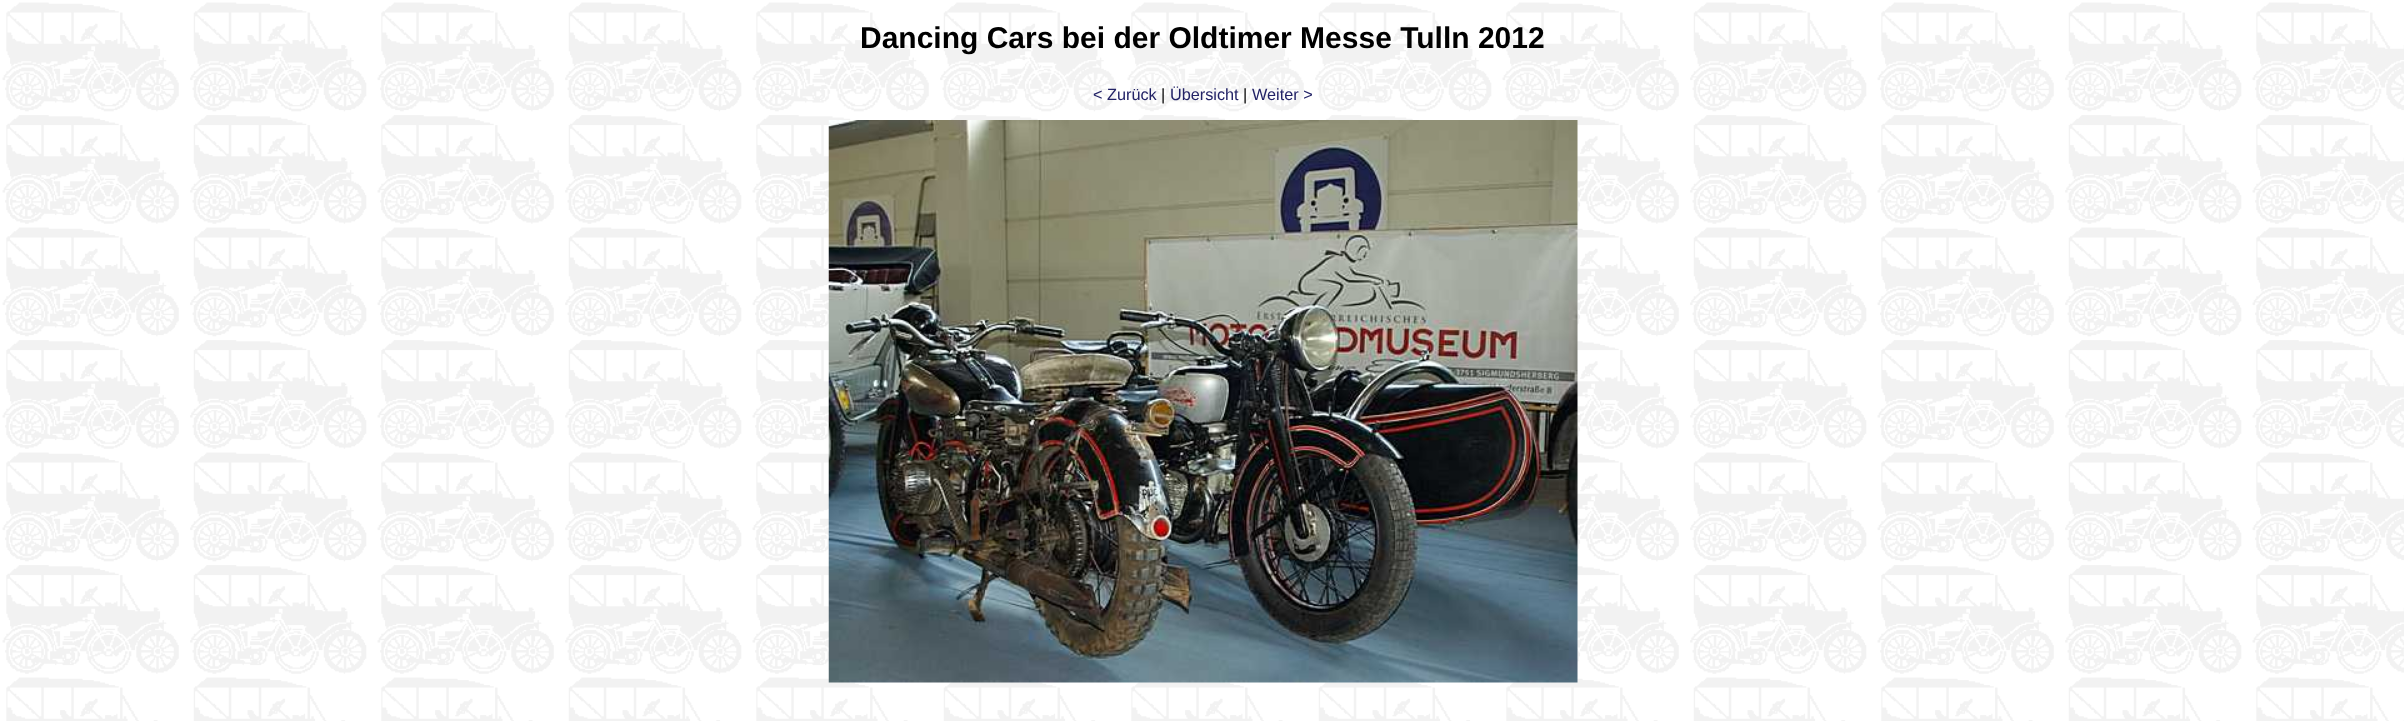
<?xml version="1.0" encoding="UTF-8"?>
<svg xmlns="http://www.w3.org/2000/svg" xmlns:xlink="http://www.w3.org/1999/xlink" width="2404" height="721">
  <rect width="100%" height="100%" fill="#ffffff" />
  <image x="2" y="2" width="2402" height="719" xlink:href="image1.png" />
  <image x="828" y="120" width="750" height="563" xlink:href="image2.png" />
  <text x="860" y="48" style="font-family: Liberation Sans; font-size: 30px; font-weight: bold; fill: #000000">Dancing Cars bei der Oldtimer Messe Tulln 2012</text>
  <text x="1093" y="100" style="font-family: Liberation Sans; font-size: 16.25px; fill: #222266">&lt; Zurück</text>
  <text x="1161" y="100" style="font-family: Liberation Sans; font-size: 16.25px; fill: #000000">|</text>
  <text x="1170" y="100" style="font-family: Liberation Sans; font-size: 16.25px; fill: #222266">Übersicht</text>
  <text x="1243" y="100" style="font-family: Liberation Sans; font-size: 16.25px; fill: #000000">|</text>
  <text x="1252" y="100" style="font-family: Liberation Sans; font-size: 16.25px; fill: #222266">Weiter &gt;</text>
</svg>
